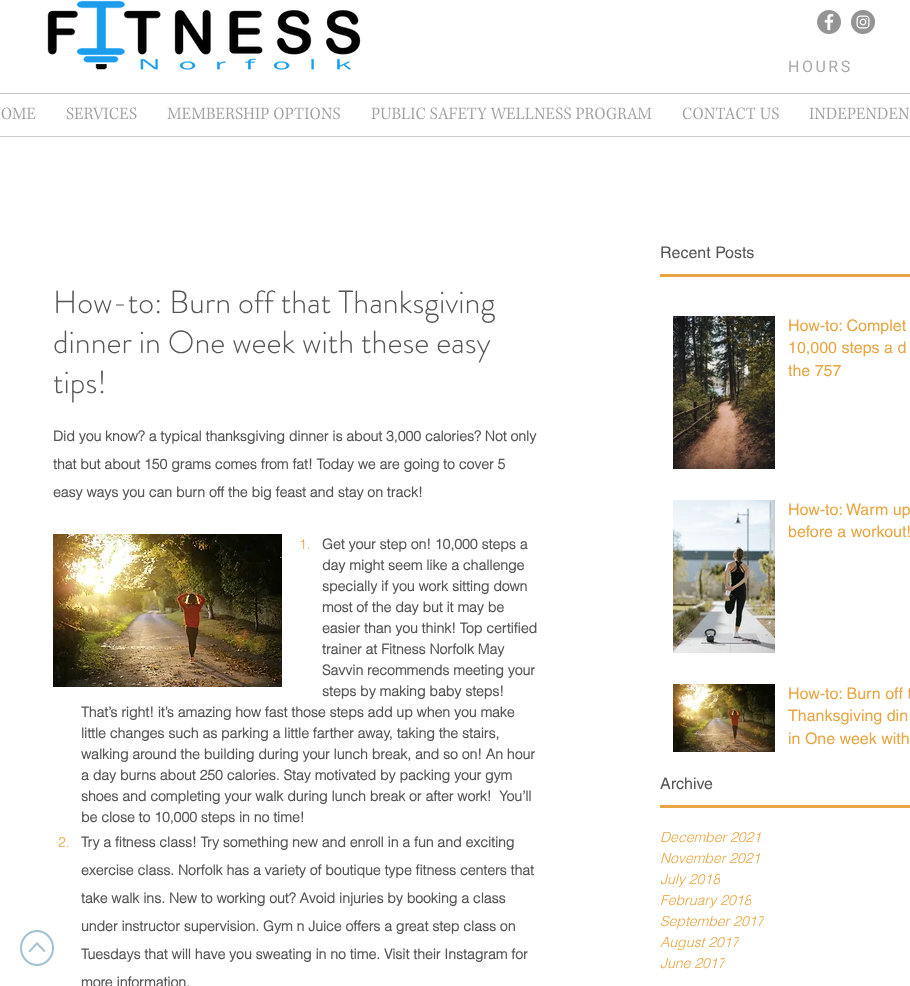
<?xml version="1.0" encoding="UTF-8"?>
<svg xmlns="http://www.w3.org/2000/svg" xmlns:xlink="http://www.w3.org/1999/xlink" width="910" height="986">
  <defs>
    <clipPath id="clip1"><rect x="660" y="869" width="60" height="21" /></clipPath>
    <clipPath id="clip2"><rect x="660" y="890" width="91" height="21" /></clipPath>
    <clipPath id="clip3"><rect x="660" y="911" width="104" height="21" /></clipPath>
    <clipPath id="clip4"><rect x="660" y="932" width="79" height="21" /></clipPath>
    <clipPath id="clip5"><rect x="660" y="953" width="65" height="21" /></clipPath>
  </defs>
  <rect width="100%" height="100%" fill="#ffffff" />
  <image x="47" y="0" width="314" height="70" xlink:href="image1.png" />
  <image x="817" y="10" width="24" height="24" xlink:href="image2.png" />
  <image x="851" y="10" width="24" height="24" xlink:href="image3.png" />
  <rect y="93" width="910" height="1" fill="#cacaca" />
  <rect y="136" width="910" height="1" fill="#cacaca" />
  <image x="0" y="107" width="36" height="13" xlink:href="image4.png" />
  <image x="66" y="107" width="71" height="13" xlink:href="image5.png" />
  <image x="167" y="107" width="173" height="13" xlink:href="image6.png" />
  <image x="371" y="107" width="281" height="13" xlink:href="image7.png" />
  <image x="682" y="107" width="97" height="13" xlink:href="image8.png" />
  <image x="809" y="107" width="101" height="13" xlink:href="image9.png" />
  <image x="20" y="930" width="34" height="36" xlink:href="image10.png" />
  <image x="53" y="534" width="229" height="153" xlink:href="image11.png" />
  <rect x="660" y="274" width="250" height="3" fill="#e8a541" />
  <image x="673" y="316" width="102" height="153" xlink:href="image12.png" />
  <image x="673" y="500" width="102" height="153" xlink:href="image13.png" />
  <image x="673" y="684" width="102" height="68" xlink:href="image14.png" />
  <rect x="660" y="805" width="250" height="3" fill="#e8a541" />
  <text x="788" y="72" style="font-family: Heebo; font-size: 16px; letter-spacing: 2.5px; fill: #aaaaaa">HOURS</text>
  <text x="53" y="313" style="font-family: 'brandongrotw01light'; font-size: 32px; font-weight: 300; fill: #555555">How-to: Burn off that Thanksgiving</text>
  <text x="53" y="353" style="font-family: 'brandongrotw01light'; font-size: 32px; font-weight: 300; fill: #555555">dinner in One week with these easy</text>
  <text x="53" y="393" style="font-family: 'brandongrotw01light'; font-size: 32px; font-weight: 300; fill: #555555">tips!</text>
  <text x="53" y="441" style="font-family: helvetica; font-size: 14px; font-weight: bold; fill: #555555">Did you know? a typical thanksgiving dinner is about 3,000 calories? Not only</text>
  <text x="53" y="469" style="font-family: helvetica; font-size: 14px; font-weight: bold; fill: #555555">that but about 150 grams comes from fat! Today we are going to cover 5</text>
  <text x="53" y="497" style="font-family: helvetica; font-size: 14px; font-weight: bold; fill: #555555">easy ways you can burn off the big feast and stay on track!</text>
  <text x="322" y="549" style="font-family: helvetica; font-size: 14px; font-weight: bold; fill: #555555">Get your step on! 10,000 steps a</text>
  <text x="322" y="570" style="font-family: helvetica; font-size: 14px; font-weight: bold; fill: #555555">day might seem like a challenge</text>
  <text x="322" y="591" style="font-family: helvetica; font-size: 14px; font-weight: bold; fill: #555555">specially if you work sitting down</text>
  <text x="322" y="612" style="font-family: helvetica; font-size: 14px; font-weight: bold; fill: #555555">most of the day but it may be</text>
  <text x="322" y="633" style="font-family: helvetica; font-size: 14px; font-weight: bold; fill: #555555">easier than you think! Top certified</text>
  <text x="322" y="654" style="font-family: helvetica; font-size: 14px; font-weight: bold; fill: #555555">trainer at Fitness Norfolk May</text>
  <text x="322" y="675" style="font-family: helvetica; font-size: 14px; font-weight: bold; fill: #555555">Savvin recommends meeting your</text>
  <text x="322" y="696" style="font-family: helvetica; font-size: 14px; font-weight: bold; fill: #555555">steps by making baby steps!</text>
  <text x="81" y="717" style="font-family: helvetica; font-size: 14px; font-weight: bold; fill: #555555">That’s right! it’s amazing how fast those steps add up when you make</text>
  <text x="81" y="738" style="font-family: helvetica; font-size: 14px; font-weight: bold; fill: #555555">little changes such as parking a little farther away, taking the stairs,</text>
  <text x="81" y="759" style="font-family: helvetica; font-size: 14px; font-weight: bold; fill: #555555">walking around the building during your lunch break, and so on! An hour</text>
  <text x="81" y="780" style="font-family: helvetica; font-size: 14px; font-weight: bold; fill: #555555">a day burns about 250 calories. Stay motivated by packing your gym</text>
  <text x="81" y="801" style="font-family: helvetica; font-size: 14px; font-weight: bold; fill: #555555" xml:space="preserve">shoes and completing your walk during lunch break or after work!  You’ll</text>
  <text x="81" y="822" style="font-family: helvetica; font-size: 14px; font-weight: bold; fill: #555555">be close to 10,000 steps in no time!</text>
  <text x="299" y="549" style="font-family: helvetica; font-size: 14px; font-weight: 300; fill: #e8a541">1.</text>
  <text x="58" y="847" style="font-family: helvetica; font-size: 14px; font-weight: 300; fill: #e8a541">2.</text>
  <text x="81" y="847" style="font-family: helvetica; font-size: 14px; font-weight: bold; fill: #555555">Try a fitness class! Try something new and enroll in a fun and exciting</text>
  <text x="81" y="875" style="font-family: helvetica; font-size: 14px; font-weight: bold; fill: #555555">exercise class. Norfolk has a variety of boutique type fitness centers that</text>
  <text x="81" y="903" style="font-family: helvetica; font-size: 14px; font-weight: bold; fill: #555555">take walk ins. New to working out? Avoid injuries by booking a class</text>
  <text x="81" y="931" style="font-family: helvetica; font-size: 14px; font-weight: bold; fill: #555555">under instructor supervision. Gym n Juice offers a great step class on</text>
  <text x="81" y="959" style="font-family: helvetica; font-size: 14px; font-weight: bold; fill: #555555">Tuesdays that will have you sweating in no time. Visit their Instagram for</text>
  <text x="81" y="987" style="font-family: helvetica; font-size: 14px; font-weight: bold; fill: #555555">more information.</text>
  <text x="660" y="258" style="font-family: helvetica; font-size: 16px; fill: #555555">Recent Posts</text>
  <text x="788" y="331" style="font-family: helvetica; font-size: 16px; fill: #e8a541">How-to: Complet</text>
  <text x="788" y="353" style="font-family: helvetica; font-size: 16px; fill: #e8a541">10,000 steps a d</text>
  <text x="788" y="376" style="font-family: helvetica; font-size: 16px; fill: #e8a541">the 757</text>
  <text x="788" y="515" style="font-family: helvetica; font-size: 16px; fill: #e8a541">How-to: Warm up</text>
  <text x="788" y="537" style="font-family: helvetica; font-size: 16px; fill: #e8a541">before a workout!</text>
  <text x="788" y="699" style="font-family: helvetica; font-size: 16px; fill: #e8a541">How-to: Burn off t</text>
  <text x="788" y="721" style="font-family: helvetica; font-size: 16px; fill: #e8a541">Thanksgiving din</text>
  <text x="788" y="744" style="font-family: helvetica; font-size: 16px; fill: #e8a541">in One week with</text>
  <text x="660" y="789" style="font-family: helvetica; font-size: 16px; fill: #555555">Archive</text>
  <text x="660" y="842" style="font-family: helvetica; font-size: 14px; font-weight: 300; font-style: italic; fill: #e8a541">December 2021</text>
  <text x="660" y="863" style="font-family: helvetica; font-size: 14px; font-weight: 300; font-style: italic; fill: #e8a541">November 2021</text>
  <g clip-path="url(#clip1)">
    <text x="660" y="884" style="font-family: helvetica; font-size: 14px; font-weight: 300; font-style: italic; fill: #e8a541">July 2018</text>
  </g>
  <g clip-path="url(#clip2)">
    <text x="660" y="905" style="font-family: helvetica; font-size: 14px; font-weight: 300; font-style: italic; fill: #e8a541">February 2018</text>
  </g>
  <g clip-path="url(#clip3)">
    <text x="660" y="926" style="font-family: helvetica; font-size: 14px; font-weight: 300; font-style: italic; fill: #e8a541">September 2017</text>
  </g>
  <g clip-path="url(#clip4)">
    <text x="660" y="947" style="font-family: helvetica; font-size: 14px; font-weight: 300; font-style: italic; fill: #e8a541">August 2017</text>
  </g>
  <g clip-path="url(#clip5)">
    <text x="660" y="968" style="font-family: helvetica; font-size: 14px; font-weight: 300; font-style: italic; fill: #e8a541">June 2017</text>
  </g>
</svg>
